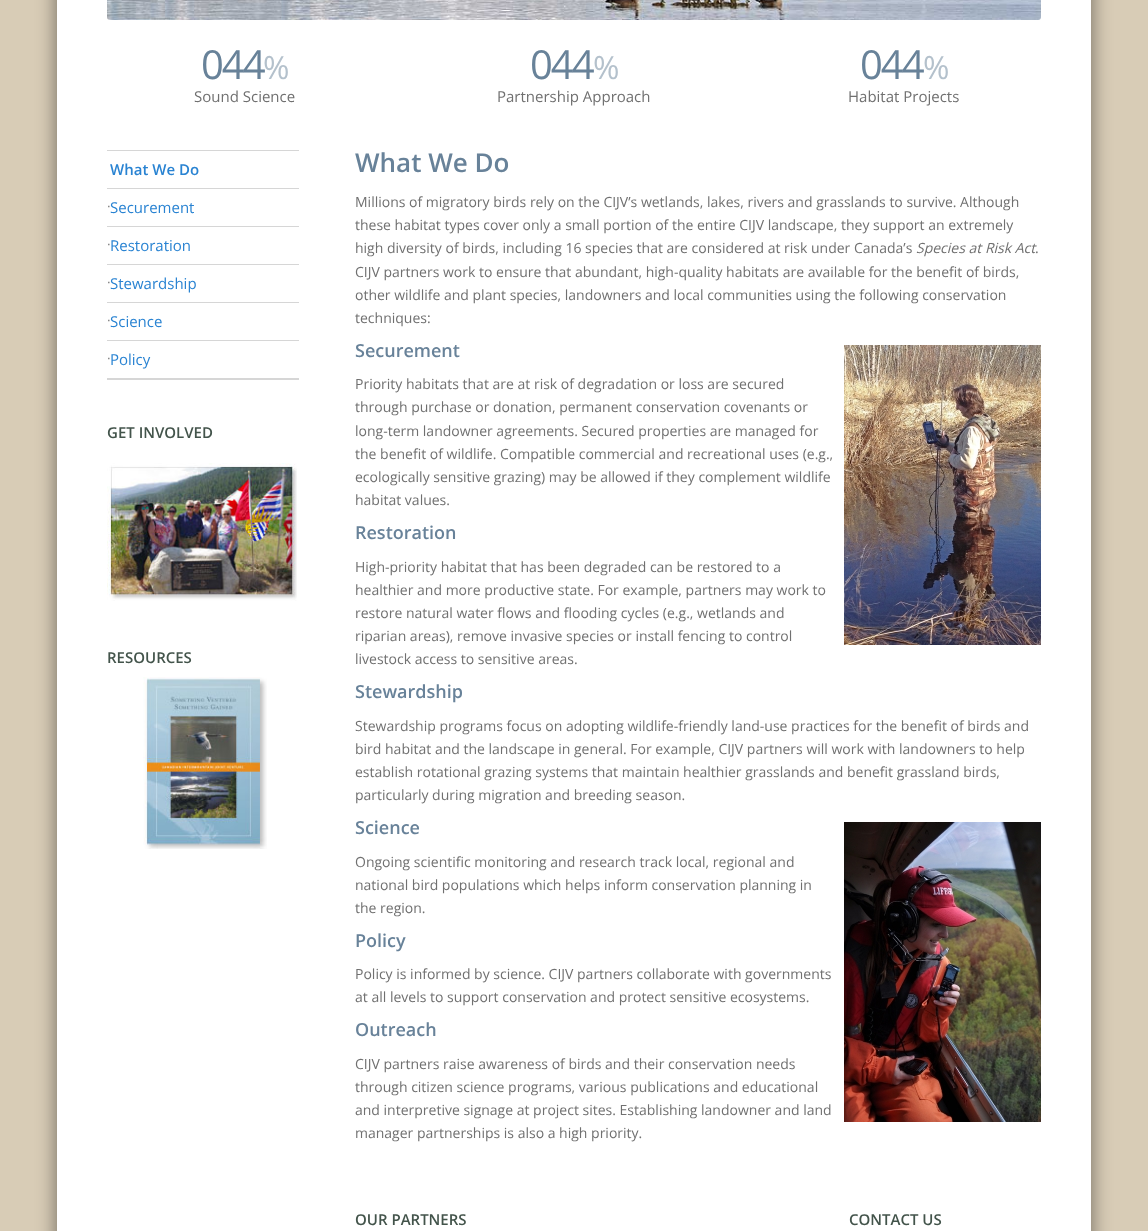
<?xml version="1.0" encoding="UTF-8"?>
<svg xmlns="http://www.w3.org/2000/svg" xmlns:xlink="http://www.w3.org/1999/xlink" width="1148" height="1231">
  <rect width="100%" height="100%" fill="#d8ccb6" />
  <rect x="57" y="-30" width="1034" height="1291" fill="#000000" fill-opacity="0.5" filter="blur(10px)" />
  <rect x="57" width="1034" height="1231" fill="#ffffff" />
  <image x="107" y="0" width="934" height="20" xlink:href="image1.png" />
  <rect x="107" y="150" width="192" height="1" fill="#d6d6d6" />
  <rect x="107" y="378" width="192" height="2" fill="#d6d6d6" />
  <rect x="107" y="188" width="192" height="1" fill="#d6d6d6" />
  <rect x="107" y="226" width="192" height="1" fill="#d6d6d6" />
  <rect x="107" y="264" width="192" height="1" fill="#d6d6d6" />
  <rect x="107" y="302" width="192" height="1" fill="#d6d6d6" />
  <rect x="107" y="340" width="192" height="1" fill="#d6d6d6" />
  <image x="107" y="463" width="190" height="138" xlink:href="image2.png" />
  <image x="143" y="677" width="124" height="172" xlink:href="image3.png" />
  <image x="844" y="345" width="197" height="300" xlink:href="image4.png" />
  <image x="844" y="822" width="197" height="300" xlink:href="image5.png" />
  <text x="201" y="79" style="font-family: Open Sans; font-size: 40px; letter-spacing: -2px; fill: #688299">044</text>
  <text x="263" y="79" style="font-family: Open Sans; font-size: 32px; letter-spacing: -2px; fill: #b4c1cc">%</text>
  <text x="194" y="102" style="font-family: Open Sans; font-size: 15px; fill: #707070">Sound Science</text>
  <text x="530" y="79" style="font-family: Open Sans; font-size: 40px; letter-spacing: -2px; fill: #688299">044</text>
  <text x="593" y="79" style="font-family: Open Sans; font-size: 32px; letter-spacing: -2px; fill: #b4c1cc">%</text>
  <text x="497" y="102" style="font-family: Open Sans; font-size: 15px; fill: #707070">Partnership Approach</text>
  <text x="860" y="79" style="font-family: Open Sans; font-size: 40px; letter-spacing: -2px; fill: #688299">044</text>
  <text x="923" y="79" style="font-family: Open Sans; font-size: 32px; letter-spacing: -2px; fill: #b4c1cc">%</text>
  <text x="848" y="102" style="font-family: Open Sans; font-size: 15px; fill: #707070">Habitat Projects</text>
  <text x="110" y="175" style="font-family: Open Sans; font-size: 15px; font-weight: 600; fill: #2983d2">What We Do</text>
  <text x="107" y="210" style="font-family: Liberation Sans; font-size: 13px; fill: #707070">∙</text>
  <text x="110" y="213" style="font-family: Open Sans; font-size: 15px; fill: #2983d2">Securement</text>
  <text x="107" y="248" style="font-family: Liberation Sans; font-size: 13px; fill: #707070">∙</text>
  <text x="110" y="251" style="font-family: Open Sans; font-size: 15px; fill: #2983d2">Restoration</text>
  <text x="107" y="286" style="font-family: Liberation Sans; font-size: 13px; fill: #707070">∙</text>
  <text x="110" y="289" style="font-family: Open Sans; font-size: 15px; fill: #2983d2">Stewardship</text>
  <text x="107" y="324" style="font-family: Liberation Sans; font-size: 13px; fill: #707070">∙</text>
  <text x="110" y="327" style="font-family: Open Sans; font-size: 15px; fill: #2983d2">Science</text>
  <text x="107" y="362" style="font-family: Liberation Sans; font-size: 13px; fill: #707070">∙</text>
  <text x="110" y="365" style="font-family: Open Sans; font-size: 15px; fill: #2983d2">Policy</text>
  <text x="107" y="438" style="font-family: Open Sans; font-size: 15px; font-weight: 600; fill: #43544b">GET INVOLVED</text>
  <text x="107" y="663" style="font-family: Open Sans; font-size: 15px; font-weight: 600; fill: #43544b">RESOURCES</text>
  <text x="355" y="172" style="font-family: Open Sans; font-size: 26px; font-weight: 600; fill: #688299">What We Do</text>
  <text x="355" y="207" style="font-family: Open Sans; font-size: 14px; fill: #707070">Millions of migratory birds rely on the CIJV’s wetlands, lakes, rivers and grasslands to survive. Although</text>
  <text x="355" y="230" style="font-family: Open Sans; font-size: 14px; fill: #707070">these habitat types cover only a small portion of the entire CIJV landscape, they support an extremely</text>
  <text x="355" y="253" style="font-family: Open Sans; font-size: 14px; fill: #707070">high diversity of birds, including 16 species that are considered at risk under Canada’s</text>
  <text x="916" y="253" style="font-family: Open Sans; font-size: 14px; font-style: italic; fill: #707070">Species at Risk Act</text>
  <text x="1035" y="253" style="font-family: Open Sans; font-size: 14px; fill: #707070">.</text>
  <text x="355" y="277" style="font-family: Open Sans; font-size: 14px; fill: #707070">CIJV partners work to ensure that abundant, high-quality habitats are available for the benefit of birds,</text>
  <text x="355" y="300" style="font-family: Open Sans; font-size: 14px; fill: #707070">other wildlife and plant species, landowners and local communities using the following conservation</text>
  <text x="355" y="323" style="font-family: Open Sans; font-size: 14px; fill: #707070">techniques:</text>
  <text x="355" y="357" style="font-family: Open Sans; font-size: 18px; font-weight: 600; fill: #688299">Securement</text>
  <text x="355" y="389" style="font-family: Open Sans; font-size: 14px; fill: #707070">Priority habitats that are at risk of degradation or loss are secured</text>
  <text x="355" y="412" style="font-family: Open Sans; font-size: 14px; fill: #707070">through purchase or donation, permanent conservation covenants or</text>
  <text x="355" y="436" style="font-family: Open Sans; font-size: 14px; fill: #707070">long-term landowner agreements. Secured properties are managed for</text>
  <text x="355" y="459" style="font-family: Open Sans; font-size: 14px; fill: #707070">the benefit of wildlife. Compatible commercial and recreational uses (e.g.,</text>
  <text x="355" y="482" style="font-family: Open Sans; font-size: 14px; fill: #707070">ecologically sensitive grazing) may be allowed if they complement wildlife</text>
  <text x="355" y="505" style="font-family: Open Sans; font-size: 14px; fill: #707070">habitat values.</text>
  <text x="355" y="539" style="font-family: Open Sans; font-size: 18px; font-weight: 600; fill: #688299">Restoration</text>
  <text x="355" y="572" style="font-family: Open Sans; font-size: 14px; fill: #707070">High-priority habitat that has been degraded can be restored to a</text>
  <text x="355" y="595" style="font-family: Open Sans; font-size: 14px; fill: #707070">healthier and more productive state. For example, partners may work to</text>
  <text x="355" y="618" style="font-family: Open Sans; font-size: 14px; fill: #707070">restore natural water flows and flooding cycles (e.g., wetlands and</text>
  <text x="355" y="641" style="font-family: Open Sans; font-size: 14px; fill: #707070">riparian areas), remove invasive species or install fencing to control</text>
  <text x="355" y="664" style="font-family: Open Sans; font-size: 14px; fill: #707070">livestock access to sensitive areas.</text>
  <text x="355" y="698" style="font-family: Open Sans; font-size: 18px; font-weight: 600; fill: #688299">Stewardship</text>
  <text x="355" y="731" style="font-family: Open Sans; font-size: 14px; fill: #707070">Stewardship programs focus on adopting wildlife-friendly land-use practices for the benefit of birds and</text>
  <text x="355" y="754" style="font-family: Open Sans; font-size: 14px; fill: #707070">bird habitat and the landscape in general. For example, CIJV partners will work with landowners to help</text>
  <text x="355" y="777" style="font-family: Open Sans; font-size: 14px; fill: #707070">establish rotational grazing systems that maintain healthier grasslands and benefit grassland birds,</text>
  <text x="355" y="800" style="font-family: Open Sans; font-size: 14px; fill: #707070">particularly during migration and breeding season.</text>
  <text x="355" y="834" style="font-family: Open Sans; font-size: 18px; font-weight: 600; fill: #688299">Science</text>
  <text x="355" y="867" style="font-family: Open Sans; font-size: 14px; fill: #707070">Ongoing scientific monitoring and research track local, regional and</text>
  <text x="355" y="890" style="font-family: Open Sans; font-size: 14px; fill: #707070">national bird populations which helps inform conservation planning in</text>
  <text x="355" y="913" style="font-family: Open Sans; font-size: 14px; fill: #707070">the region.</text>
  <text x="355" y="947" style="font-family: Open Sans; font-size: 18px; font-weight: 600; fill: #688299">Policy</text>
  <text x="355" y="979" style="font-family: Open Sans; font-size: 14px; fill: #707070">Policy is informed by science. CIJV partners collaborate with governments</text>
  <text x="355" y="1002" style="font-family: Open Sans; font-size: 14px; fill: #707070">at all levels to support conservation and protect sensitive ecosystems.</text>
  <text x="355" y="1036" style="font-family: Open Sans; font-size: 18px; font-weight: 600; fill: #688299">Outreach</text>
  <text x="355" y="1069" style="font-family: Open Sans; font-size: 14px; fill: #707070">CIJV partners raise awareness of birds and their conservation needs</text>
  <text x="355" y="1092" style="font-family: Open Sans; font-size: 14px; fill: #707070">through citizen science programs, various publications and educational</text>
  <text x="355" y="1115" style="font-family: Open Sans; font-size: 14px; fill: #707070">and interpretive signage at project sites. Establishing landowner and land</text>
  <text x="355" y="1138" style="font-family: Open Sans; font-size: 14px; fill: #707070">manager partnerships is also a high priority.</text>
  <text x="355" y="1225" style="font-family: Open Sans; font-size: 15px; font-weight: 600; fill: #43544b">OUR PARTNERS</text>
  <text x="849" y="1225" style="font-family: Open Sans; font-size: 15px; font-weight: 600; fill: #43544b">CONTACT US</text>
</svg>
